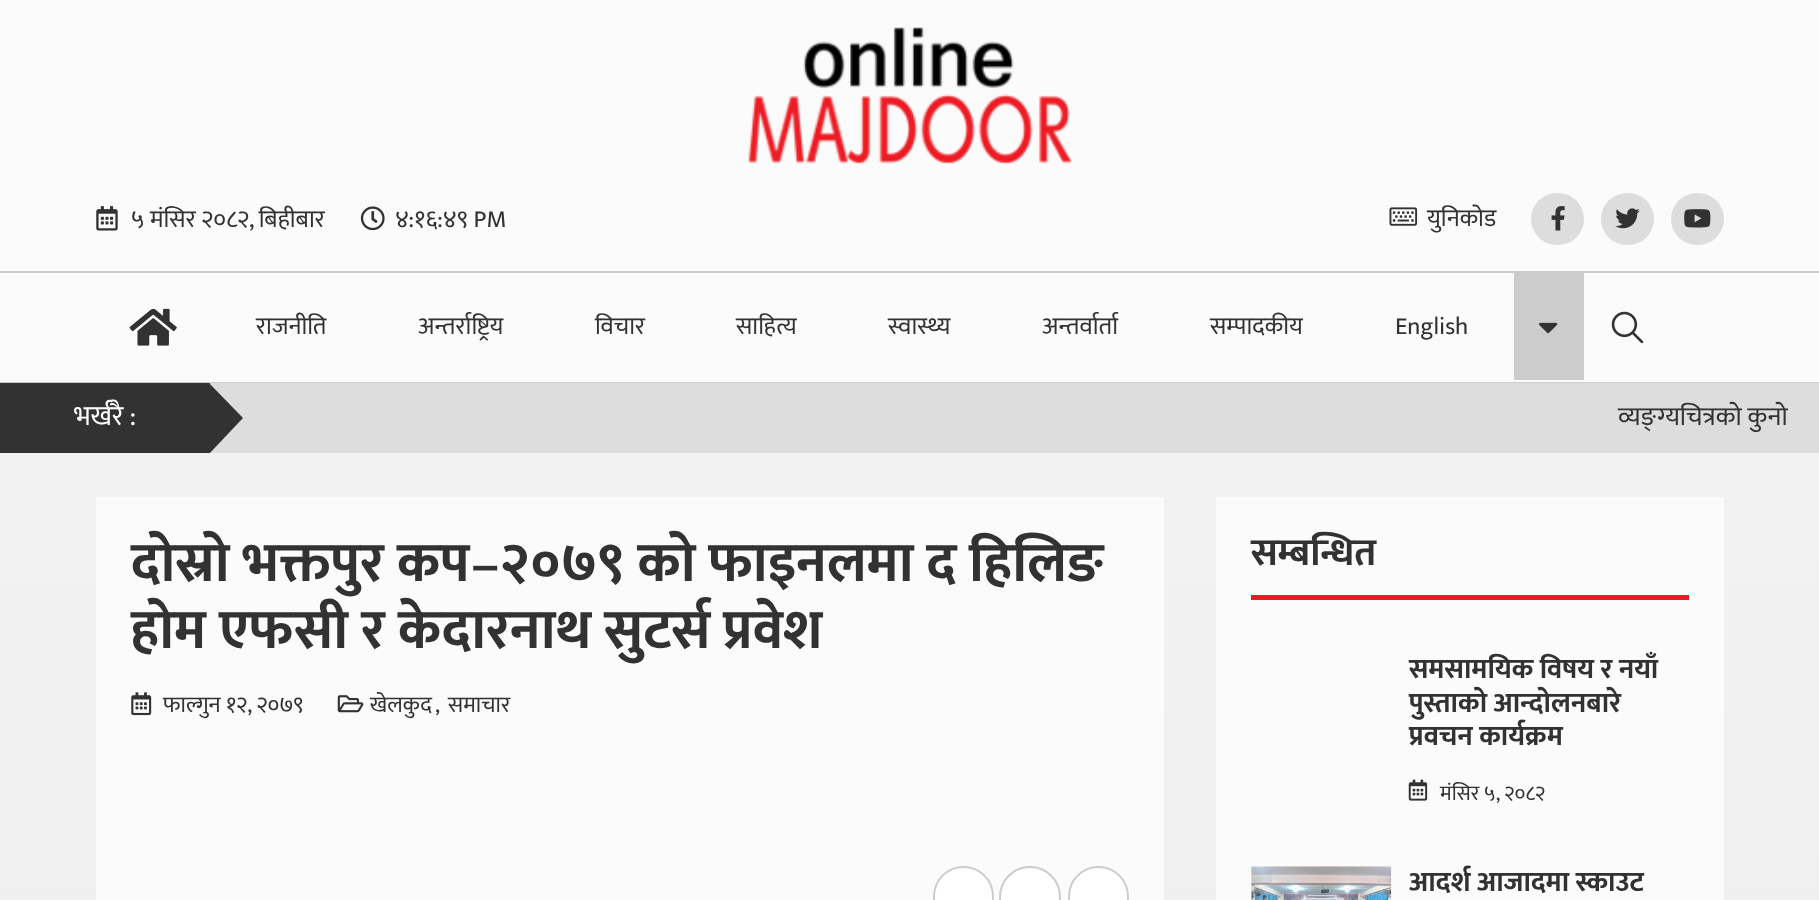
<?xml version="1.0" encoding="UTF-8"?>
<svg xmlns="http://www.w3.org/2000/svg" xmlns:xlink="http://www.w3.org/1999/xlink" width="1819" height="900">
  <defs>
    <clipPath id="clip1"><rect y="383" width="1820" height="70" /></clipPath>
    <linearGradient id="g1" gradientUnits="userSpaceOnUse" x1="910" y1="453" x2="910" y2="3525"><stop offset="0" stop-color="#f2f2f2" /><stop offset="0.26" stop-color="#eeeef0" /><stop offset="1" stop-color="#fcfcfc" /></linearGradient>
  </defs>
  <rect width="100%" height="100%" fill="#fbfbfb" />
  <image x="748" y="27" width="324" height="137" xlink:href="image1.png" />
  <image x="96" y="206" width="22" height="25" xlink:href="image2.png" />
  <image x="360" y="206" width="25" height="25" xlink:href="image3.png" />
  <rect x="1531" y="193" width="53" height="52" rx="26" fill="#dedddd" />
  <image x="1551" y="206" width="14" height="25" xlink:href="image5.png" />
  <rect x="1601" y="193" width="53" height="52" rx="26" fill="#dedddd" />
  <image x="1615" y="208" width="25" height="21" xlink:href="image6.png" />
  <rect x="1671" y="193" width="53" height="52" rx="26" fill="#dedddd" />
  <image x="1684" y="209" width="27" height="19" xlink:href="image7.png" />
  <rect y="271" width="1819" height="2" fill="#cccccc" />
  <rect y="382" width="1819" height="1" fill="#cccccc" />
  <image x="129" y="308" width="48" height="38" xlink:href="image8.png" />
  <rect x="1514" y="273" width="70" height="107" fill="#cccccc" />
  <image x="1539" y="322" width="19" height="12" xlink:href="image9.png" />
  <image x="1611" y="311" width="33" height="33" xlink:href="image10.png" />
  <rect x="210" y="383" width="1609" height="70" fill="#dedddd" />
  <rect y="383" width="210" height="70" fill="#323232" />
  <g clip-path="url(#clip1)">
    <path d="M 208 455 v -73 l 35 36 z" fill="#323232" />
  </g>
  <rect y="453" width="1819" height="447" fill="url(#g1)" />
  <rect x="96" y="497" width="1068" height="403" fill="#fbfbfb" />
  <image x="131" y="692" width="21" height="24" xlink:href="image11.png" />
  <rect x="934" y="867" width="59" height="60" rx="29.5" fill="#ffffff" stroke="#cccccc" stroke-width="2" />
  <circle cx="1030" cy="897" r="30" fill="#ffffff" stroke="#cccccc" stroke-width="2" />
  <rect x="1069" y="867" width="59" height="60" rx="29.5" fill="#ffffff" stroke="#cccccc" stroke-width="2" />
  <rect x="1216" y="497" width="508" height="403" fill="#fbfbfb" />
  <rect x="1251" y="595" width="438" height="5" fill="#ed1c24" />
  <image x="1408" y="779" width="20" height="22" xlink:href="image13.png" />
  <image x="1251" y="866" width="141" height="34" xlink:href="image14.png" />
  <text x="131" y="227" style="font-family: Mukta; font-size: 24.5px; fill: #323232">५ मंसिर २०८२, बिहीबार</text>
  <text x="395" y="227" style="font-family: Mukta; font-size: 24.5px; fill: #323232">४:१६:४९ PM</text>
  <text x="1427" y="226" style="font-family: Mukta; font-size: 24.5px; fill: #323232">युनिकोड</text>
  <image x="1389" y="207" width="29" height="19" xlink:href="image4.png" />
  <text x="256" y="334" style="font-family: Mukta; font-size: 24.5px; fill: #323232">राजनीति</text>
  <text x="418" y="334" style="font-family: Mukta; font-size: 24.5px; fill: #323232">अन्तर्राष्ट्रिय</text>
  <text x="595" y="334" style="font-family: Mukta; font-size: 24.5px; fill: #323232">विचार</text>
  <text x="736" y="334" style="font-family: Mukta; font-size: 24.5px; fill: #323232">साहित्य</text>
  <text x="888" y="334" style="font-family: Mukta; font-size: 24.5px; fill: #323232">स्वास्थ्य</text>
  <text x="1042" y="334" style="font-family: Mukta; font-size: 24.5px; fill: #323232">अन्तर्वार्ता</text>
  <text x="1210" y="334" style="font-family: Mukta; font-size: 24.5px; fill: #323232">सम्पादकीय</text>
  <text x="1395" y="334" style="font-family: Mukta; font-size: 24.5px; fill: #323232">English</text>
  <text x="74" y="425" style="font-family: Mukta; font-size: 28px; fill: #ffffff">भर्खरै :</text>
  <text x="1618" y="425" style="font-family: Mukta; font-size: 26.25px; fill: #323232">व्यङ्ग्यचित्रको कुनो</text>
  <text x="131" y="581" style="font-family: Mukta; font-size: 56px; font-weight: bold; fill: #323232">दोस्रो भक्तपुर कप–२०७९ को फाइनलमा द हिलिङ</text>
  <text x="131" y="648" style="font-family: Mukta; font-size: 56px; font-weight: bold; fill: #323232">होम एफसी र केदारनाथ सुटर्स प्रवेश</text>
  <text x="163" y="712" style="font-family: Mukta; font-size: 22.75px; fill: #323232">फाल्गुन १२, २०७९</text>
  <text x="370" y="712" style="font-family: Mukta; font-size: 22.75px; fill: #323232">खेलकुद</text>
  <image x="337" y="695" width="27" height="18" xlink:href="image12.png" />
  <text x="435" y="712" style="font-family: Mukta; font-size: 22.75px; fill: #323232">,</text>
  <text x="448" y="712" style="font-family: Mukta; font-size: 22.75px; fill: #323232">समाचार</text>
  <text x="1251" y="565" style="font-family: Mukta; font-size: 38.5px; font-weight: bold; fill: #323232">सम्बन्धित</text>
  <text x="1409" y="678" style="font-family: Mukta; font-size: 28px; font-weight: bold; fill: #323232">समसामयिक विषय र नयाँ</text>
  <text x="1409" y="712" style="font-family: Mukta; font-size: 28px; font-weight: bold; fill: #323232">पुस्ताको आन्दोलनबारे</text>
  <text x="1409" y="745" style="font-family: Mukta; font-size: 28px; font-weight: bold; fill: #323232">प्रवचन कार्यक्रम</text>
  <text x="1440" y="800" style="font-family: Mukta; font-size: 21px; fill: #323232">मंसिर ५, २०८२</text>
  <text x="1409" y="891" style="font-family: Mukta; font-size: 28px; font-weight: bold; fill: #323232">आदर्श आजादमा स्काउट</text>
</svg>
